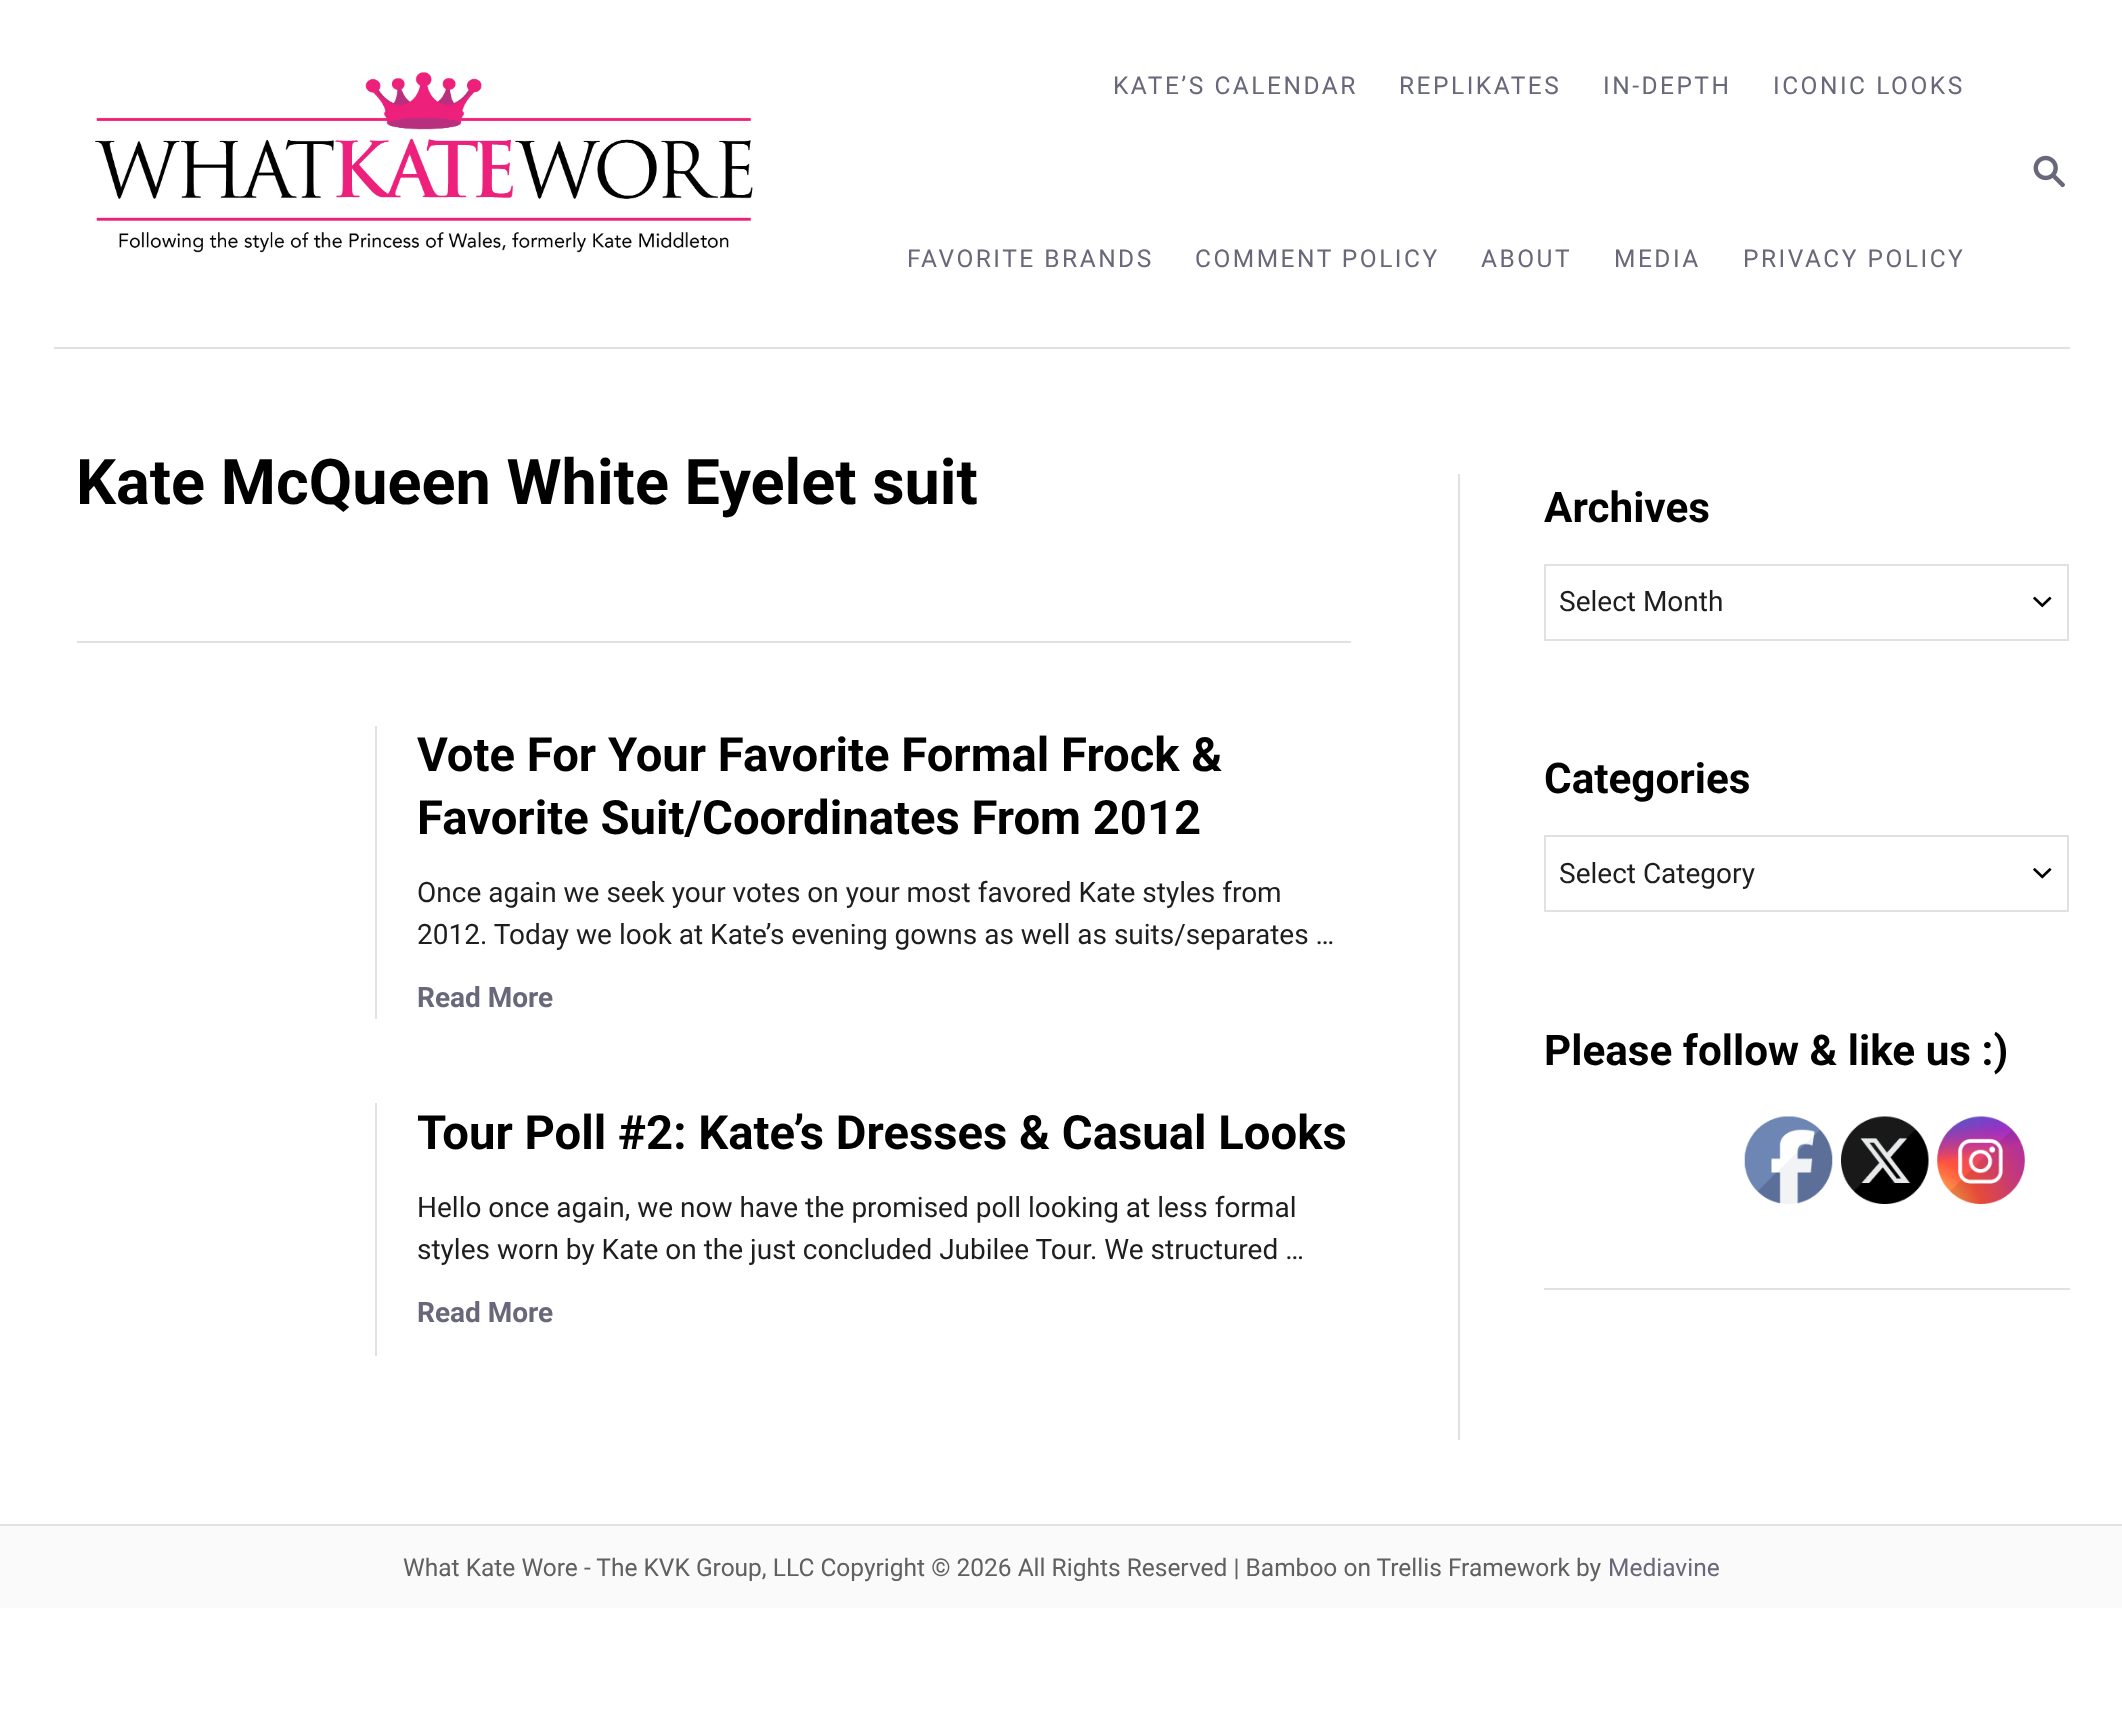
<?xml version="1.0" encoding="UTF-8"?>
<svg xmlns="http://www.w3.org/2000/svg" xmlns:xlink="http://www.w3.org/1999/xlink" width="2122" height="1714">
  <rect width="100%" height="100%" fill="#ffffff" />
  <rect x="54" y="347" width="2016" height="2" fill="#e1e1e1" />
  <image x="95" y="72" width="658" height="181" xlink:href="image1.png" />
  <image x="2033" y="155" width="32" height="33" xlink:href="image2.png" />
  <rect x="77" y="641" width="1274" height="2" fill="#e1e1e1" />
  <rect x="375" y="726" width="2" height="293" fill="#e1e1e1" />
  <rect x="375" y="1103" width="2" height="253" fill="#e1e1e1" />
  <rect x="1458" y="474" width="2" height="966" fill="#e1e1e1" />
  <image x="2033" y="596" width="19" height="12" xlink:href="image3.png" />
  <rect x="1545" y="565" width="523" height="75" fill="none" stroke="#e1e1e1" stroke-width="2" />
  <image x="2033" y="868" width="19" height="11" xlink:href="image4.png" />
  <rect x="1545" y="836" width="523" height="75" fill="none" stroke="#e1e1e1" stroke-width="2" />
  <image x="1744" y="1116" width="89" height="88" xlink:href="image5.png" />
  <image x="1841" y="1116" width="88" height="88" xlink:href="image6.png" />
  <image x="1937" y="1116" width="88" height="88" xlink:href="image7.png" />
  <rect x="1544" y="1288" width="526" height="2" fill="#e1e1e1" />
  <rect y="1526" width="2122" height="82" fill="#fafafa" />
  <rect y="1524" width="2122" height="2" fill="#e1e1e1" />
  <text x="1113" y="94" style="font-family: Roboto; font-size: 24.5px; letter-spacing: 2.5px; fill: #68687a">KATE’S CALENDAR</text>
  <text x="1399" y="94" style="font-family: Roboto; font-size: 24.5px; letter-spacing: 2.5px; fill: #68687a">REPLIKATES</text>
  <text x="1603" y="94" style="font-family: Roboto; font-size: 24.5px; letter-spacing: 2.5px; fill: #68687a">IN-DEPTH</text>
  <text x="1773" y="94" style="font-family: Roboto; font-size: 24.5px; letter-spacing: 2.5px; fill: #68687a">ICONIC LOOKS</text>
  <text x="907" y="267" style="font-family: Roboto; font-size: 24.5px; letter-spacing: 2.5px; fill: #68687a">FAVORITE BRANDS</text>
  <text x="1195" y="267" style="font-family: Roboto; font-size: 24.5px; letter-spacing: 2.5px; fill: #68687a">COMMENT POLICY</text>
  <text x="1481" y="267" style="font-family: Roboto; font-size: 24.5px; letter-spacing: 2.5px; fill: #68687a">ABOUT</text>
  <text x="1614" y="267" style="font-family: Roboto; font-size: 24.5px; letter-spacing: 2.5px; fill: #68687a">MEDIA</text>
  <text x="1743" y="267" style="font-family: Roboto; font-size: 24.5px; letter-spacing: 2.5px; fill: #68687a">PRIVACY POLICY</text>
  <text x="76" y="504" style="font-family: Roboto; font-size: 63px; font-weight: bold; fill: #000000">Kate McQueen White Eyelet suit</text>
  <text x="417" y="771" style="font-family: Roboto; font-size: 47.25px; font-weight: bold; fill: #000000">Vote For Your Favorite Formal Frock &amp;</text>
  <text x="417" y="834" style="font-family: Roboto; font-size: 47.25px; font-weight: bold; fill: #000000">Favorite Suit/Coordinates From 2012</text>
  <text x="417" y="902" style="font-family: Roboto; font-size: 28px; fill: #1e1e1e">Once again we seek your votes on your most favored Kate styles from</text>
  <text x="417" y="944" style="font-family: Roboto; font-size: 28px; fill: #1e1e1e">2012. Today we look at Kate’s evening gowns as well as suits/separates …</text>
  <text x="417" y="1007" style="font-family: Roboto; font-size: 28px; font-weight: bold; fill: #68687a">Read More</text>
  <text x="417" y="1149" style="font-family: Roboto; font-size: 47.25px; font-weight: bold; fill: #000000">Tour Poll #2: Kate’s Dresses &amp; Casual Looks</text>
  <text x="417" y="1217" style="font-family: Roboto; font-size: 28px; fill: #1e1e1e">Hello once again, we now have the promised poll looking at less formal</text>
  <text x="417" y="1259" style="font-family: Roboto; font-size: 28px; fill: #1e1e1e">styles worn by Kate on the just concluded Jubilee Tour. We structured …</text>
  <text x="417" y="1322" style="font-family: Roboto; font-size: 28px; font-weight: bold; fill: #68687a">Read More</text>
  <text x="1544" y="522" style="font-family: Roboto; font-size: 42.25px; font-weight: bold; fill: #000000">Archives</text>
  <text x="1559" y="611" style="font-family: Roboto; font-size: 28px; fill: #1e1e1e">Select Month</text>
  <text x="1544" y="793" style="font-family: Roboto; font-size: 42.25px; font-weight: bold; fill: #000000">Categories</text>
  <text x="1559" y="883" style="font-family: Roboto; font-size: 28px; fill: #1e1e1e">Select Category</text>
  <text x="1544" y="1065" style="font-family: Roboto; font-size: 42.25px; font-weight: bold; fill: #000000">Please follow &amp; like us :)</text>
  <text x="403" y="1576" style="font-family: Roboto; font-size: 24.5px; fill: #606060">What Kate Wore - The KVK Group, LLC Copyright © 2026 All Rights Reserved | Bamboo on Trellis Framework by</text>
  <text x="1608" y="1576" style="font-family: Roboto; font-size: 24.5px; fill: #68687a">Mediavine</text>
</svg>
